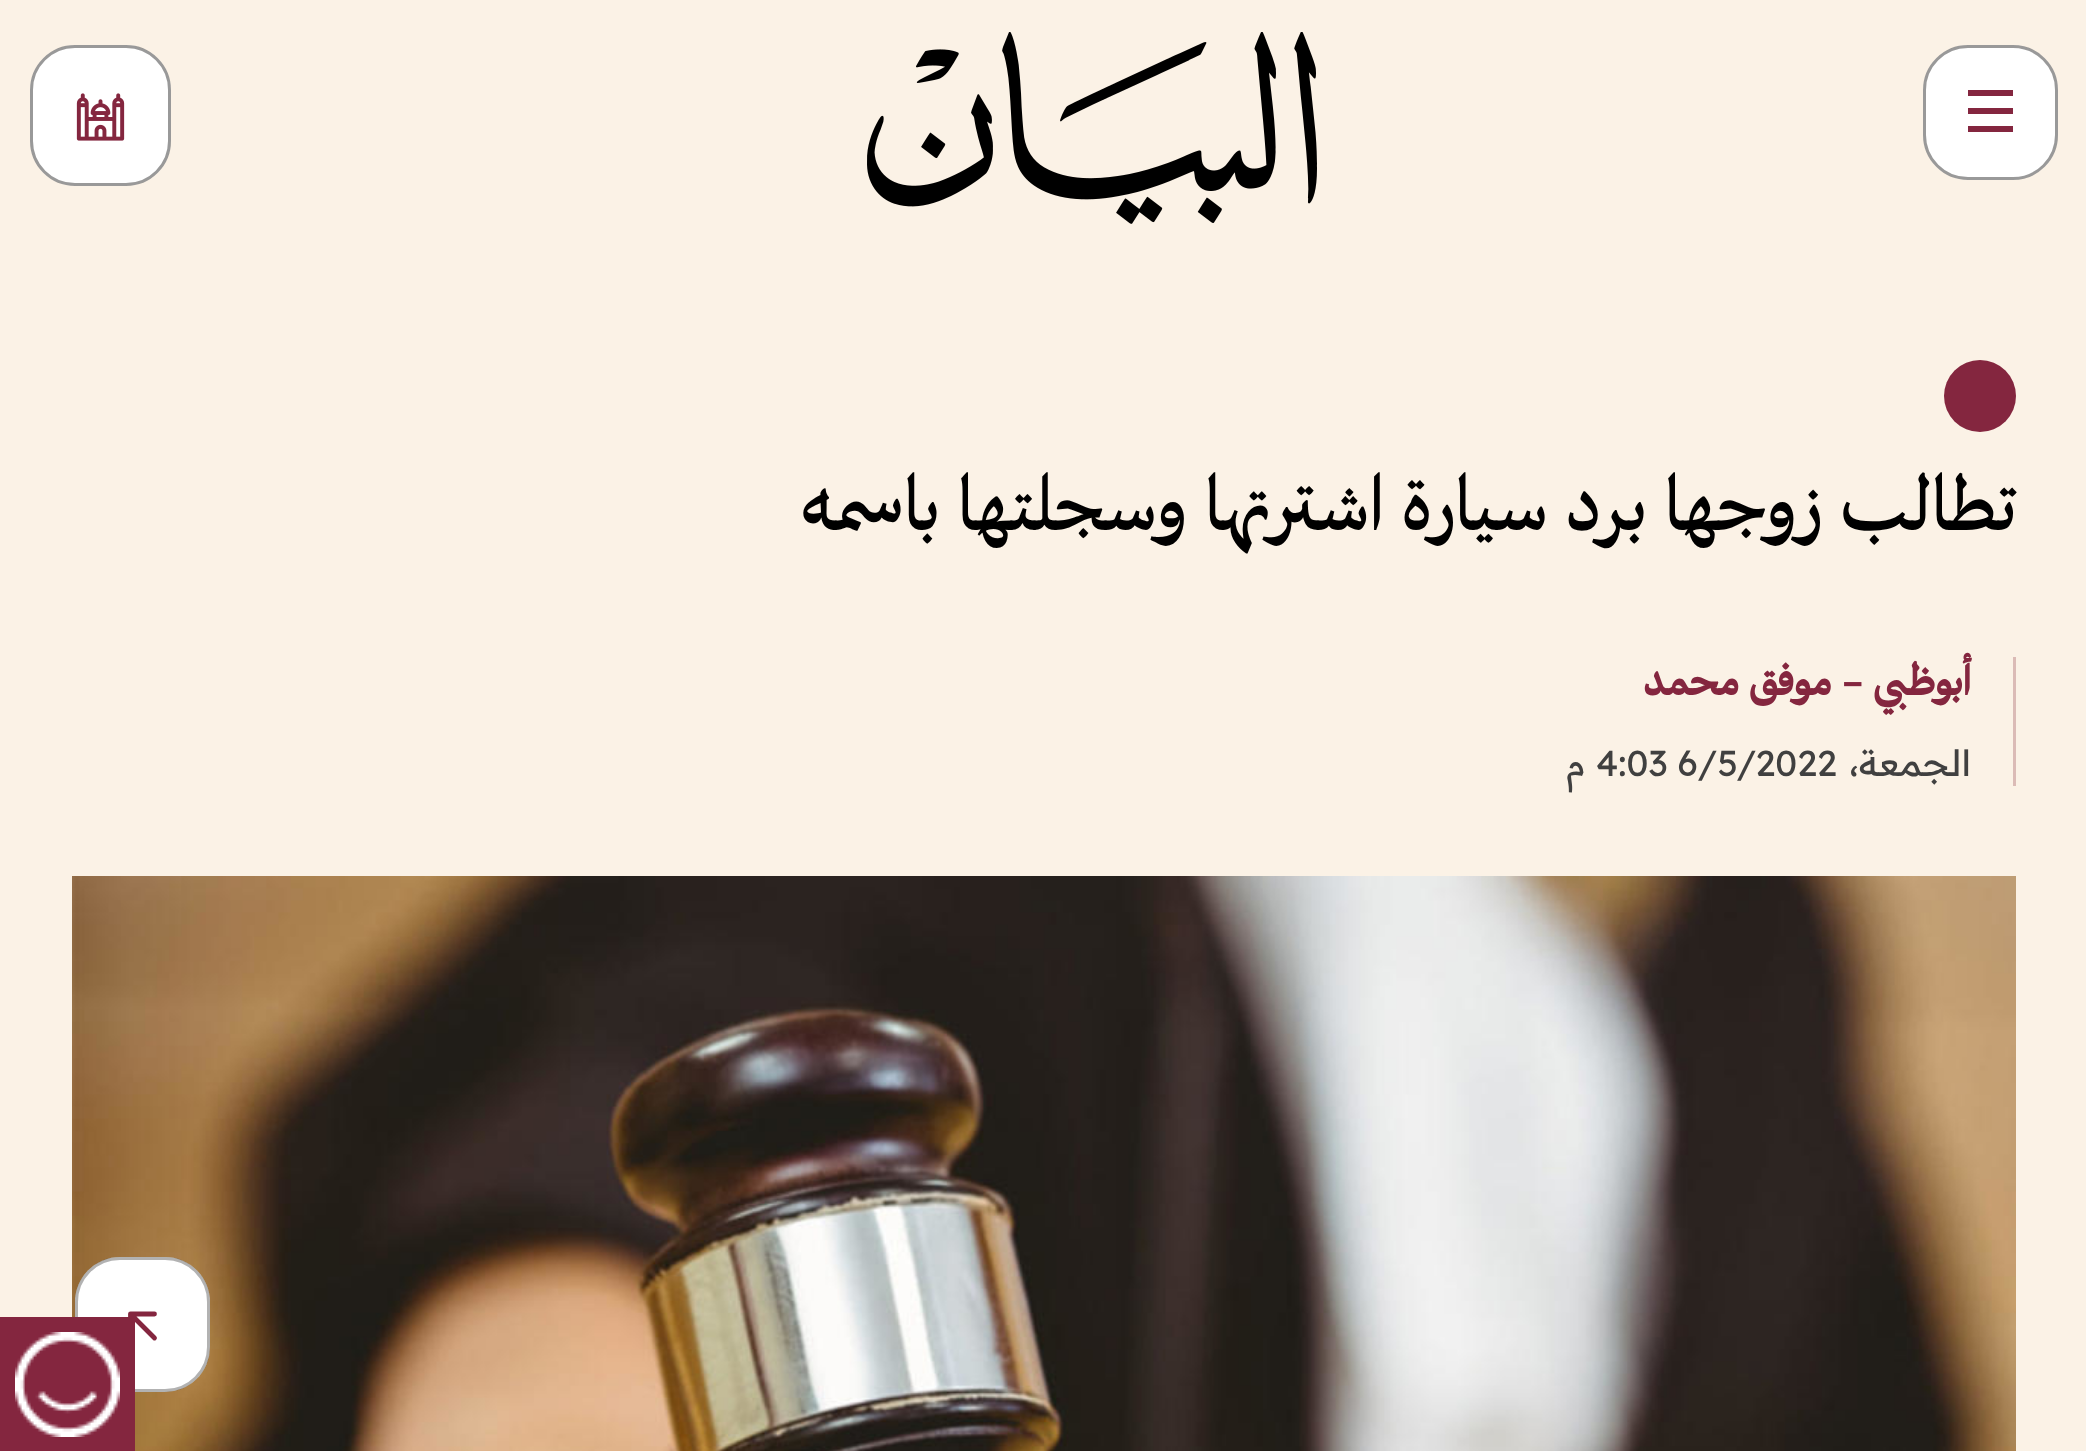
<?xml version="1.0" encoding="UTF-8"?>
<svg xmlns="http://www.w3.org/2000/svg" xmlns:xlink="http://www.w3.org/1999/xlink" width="2086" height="1451">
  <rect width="100%" height="100%" fill="#fbf2e6" />
  <rect x="1923" y="45" width="135" height="135" rx="45" fill="#ffffff" />
  <rect x="1924.5" y="46.5" width="132" height="132" rx="43.5" fill="none" stroke="#000000" stroke-opacity="0.4" stroke-width="3" />
  <rect x="1968" y="90" width="45" height="6" fill="#84263f" />
  <rect x="1968" y="108" width="45" height="6" fill="#84263f" />
  <rect x="1968" y="126" width="45" height="6" fill="#84263f" />
  <image x="867" y="32" width="450" height="192" xlink:href="image1.png" />
  <rect x="30" y="45" width="141" height="141" rx="45" fill="#ffffff" />
  <rect x="31.5" y="46.5" width="138" height="138" rx="43.5" fill="none" stroke="#000000" stroke-opacity="0.4" stroke-width="3" />
  <image x="76" y="93" width="49" height="48" xlink:href="image2.png" />
  <circle cx="1980" cy="396" r="36" fill="#84263f" />
  <rect x="2013" y="657" width="3" height="129" fill="#dbbbb6" />
  <image x="72" y="876" width="1944" height="575" xlink:href="image3.png" />
  <rect x="75" y="1257" width="135" height="135" rx="45" fill="#ffffff" />
  <rect x="76.5" y="1258.5" width="132" height="132" rx="43.5" fill="none" stroke="#000000" stroke-opacity="0.3" stroke-width="3" />
  <path d="M 154.5 1338 l -24 -24 m 0 24 v -24 h 24" fill="none" stroke="#84263f" stroke-width="4.8" stroke-linecap="round" stroke-linejoin="round" />
  <rect y="1317" width="135" height="134" fill="#84263f" />
  <image x="15" y="1332" width="105" height="105" xlink:href="image4.png" />
  <text x="2016" y="530" style="font-family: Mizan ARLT; font-size: 84px; font-weight: 500; direction: rtl; fill: #000000">تطالب زوجها برد سيارة اشترتها وسجلتها باسمه</text>
  <text x="1971" y="695" style="font-family: Mizan ARLT; font-size: 48px; font-weight: bold; direction: rtl; fill: #84263f">أبوظبي – موفق محمد</text>
  <text x="1971" y="776" style="font-family: Readex Pro; font-size: 36px; direction: rtl; fill: #404040">الجمعة،</text>
  <text x="1596" y="776" style="font-family: Readex Pro; font-size: 36px; fill: #404040">4:03 6/5/2022</text>
  <text x="1586" y="776" style="font-family: Readex Pro; font-size: 36px; direction: rtl; fill: #404040">م</text>
</svg>
